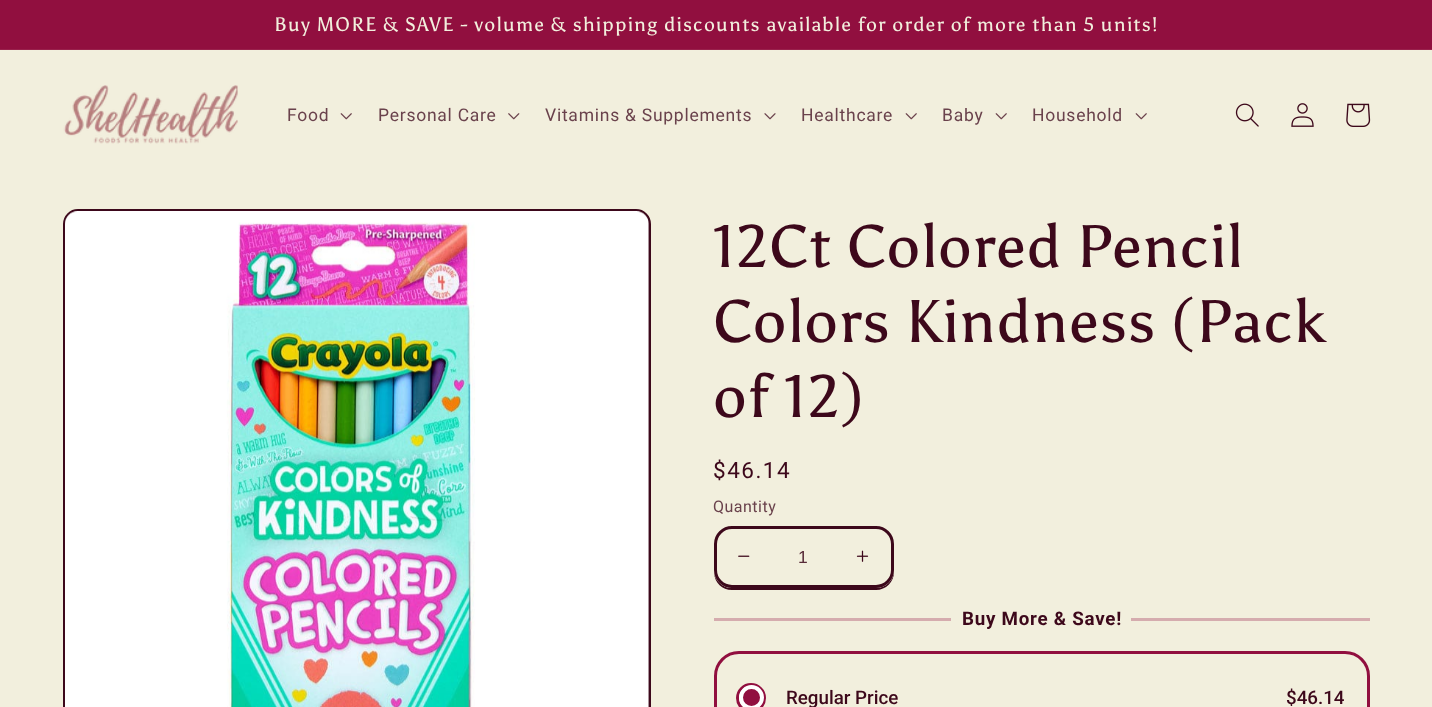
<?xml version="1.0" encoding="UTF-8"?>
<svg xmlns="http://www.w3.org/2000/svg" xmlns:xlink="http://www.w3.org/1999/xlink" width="1432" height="707">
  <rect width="100%" height="100%" fill="#f2efdd" />
  <rect width="1432" height="49" fill="#910f3f" />
  <rect y="49" width="1432" height="1" fill="#99214c" />
  <image x="63" y="85" width="175" height="59" xlink:href="image1.png" />
  <image x="340" y="113" width="12" height="7" xlink:href="image2.png" />
  <image x="508" y="113" width="12" height="7" xlink:href="image3.png" />
  <image x="764" y="113" width="12" height="7" xlink:href="image4.png" />
  <image x="905" y="113" width="12" height="7" xlink:href="image2.png" />
  <image x="995" y="113" width="12" height="7" xlink:href="image2.png" />
  <image x="1135" y="113" width="12" height="7" xlink:href="image2.png" />
  <image x="1235" y="103" width="24" height="24" xlink:href="image5.png" />
  <image x="1291" y="103" width="23" height="24" xlink:href="image6.png" />
  <image x="1346" y="103" width="25" height="24" xlink:href="image7.png" />
  <rect x="64.5" y="210.5" width="585" height="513" rx="13.5" fill="none" stroke="#3d081b" stroke-width="3" />
  <image x="65" y="211" width="584" height="496" xlink:href="image8.png" />
  <path d="M 714 573 c 1 10 8 17 18 17 h 144 c 10 0 18 -8 18 -18 v -28 v 26 c 0 10 -8 18 -18 18 h -145 c -8 0 -15 -7 -17 -15 z" fill="#3d081b" />
  <rect x="714" y="526" width="180" height="62" rx="18" fill="#f2efdd" />
  <image x="738" y="555" width="12" height="2" xlink:href="image9.png" />
  <image x="856" y="550" width="13" height="12" xlink:href="image10.png" />
  <rect x="715.5" y="527.5" width="177" height="59" rx="16.5" fill="none" stroke="#3d081b" stroke-width="3" />
  <rect x="714" y="618" width="237" height="3" fill="#d5acae" />
  <rect x="1131" y="618" width="239" height="3" fill="#d5acae" />
  <rect x="715.5" y="652.5" width="653" height="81" rx="23.5" fill="none" stroke="#910f3f" stroke-width="3" />
  <circle cx="751" cy="698" r="13.5" fill="none" stroke="#910f3f" stroke-width="3" />
  <circle cx="751.5" cy="697.5" r="10.5" fill="#910f3f" stroke="#ffffff" stroke-width="4" />
  <text x="274" y="31" style="font-family: Asul; font-size: 19.5px; letter-spacing: 1.25px; fill: #f2efdd">Buy MORE &amp; SAVE - volume &amp; shipping discounts available for order of more than 5 units!</text>
  <text x="287" y="121" style="font-family: Roboto; font-size: 17.5px; letter-spacing: 0.75px; fill: #6a424c">Food</text>
  <text x="378" y="121" style="font-family: Roboto; font-size: 17.5px; letter-spacing: 0.75px; fill: #6a424c">Personal Care</text>
  <text x="545" y="121" style="font-family: Roboto; font-size: 17.5px; letter-spacing: 0.75px; fill: #6a424c">Vitamins &amp; Supplements</text>
  <text x="801" y="121" style="font-family: Roboto; font-size: 17.5px; letter-spacing: 0.75px; fill: #6a424c">Healthcare</text>
  <text x="942" y="121" style="font-family: Roboto; font-size: 17.5px; letter-spacing: 0.75px; fill: #6a424c">Baby</text>
  <text x="1032" y="121" style="font-family: Roboto; font-size: 17.5px; letter-spacing: 0.75px; fill: #6a424c">Household</text>
  <text x="713" y="267" style="font-family: Asul; font-size: 60px; letter-spacing: 0.9px; fill: #3d081b">12Ct Colored Pencil</text>
  <text x="713" y="342" style="font-family: Asul; font-size: 60px; letter-spacing: 0.9px; fill: #3d081b">Colors Kindness (Pack</text>
  <text x="713" y="417" style="font-family: Asul; font-size: 60px; letter-spacing: 0.9px; fill: #3d081b">of 12)</text>
  <text x="713" y="478" style="font-family: Roboto; font-size: 22.5px; letter-spacing: 1.5px; fill: #3d081b">$46.14</text>
  <text x="713" y="512" style="font-family: Roboto; font-size: 16px; letter-spacing: 0.5px; fill: #6a424c">Quantity</text>
  <text x="798" y="563" style="font-family: Liberation Sans; font-size: 17.5px; fill: #582b38">1</text>
  <text x="962" y="625" style="font-family: Roboto; font-size: 18.75px; font-weight: bold; letter-spacing: 0.75px; fill: #3d081b">Buy More &amp; Save!</text>
  <text x="786" y="704" style="font-family: Roboto; font-size: 18.75px; font-weight: 500; fill: #3d081b">Regular Price</text>
  <text x="1286" y="704" style="font-family: Roboto; font-size: 18.75px; font-weight: 500; fill: #3d081b">$46.14</text>
</svg>
